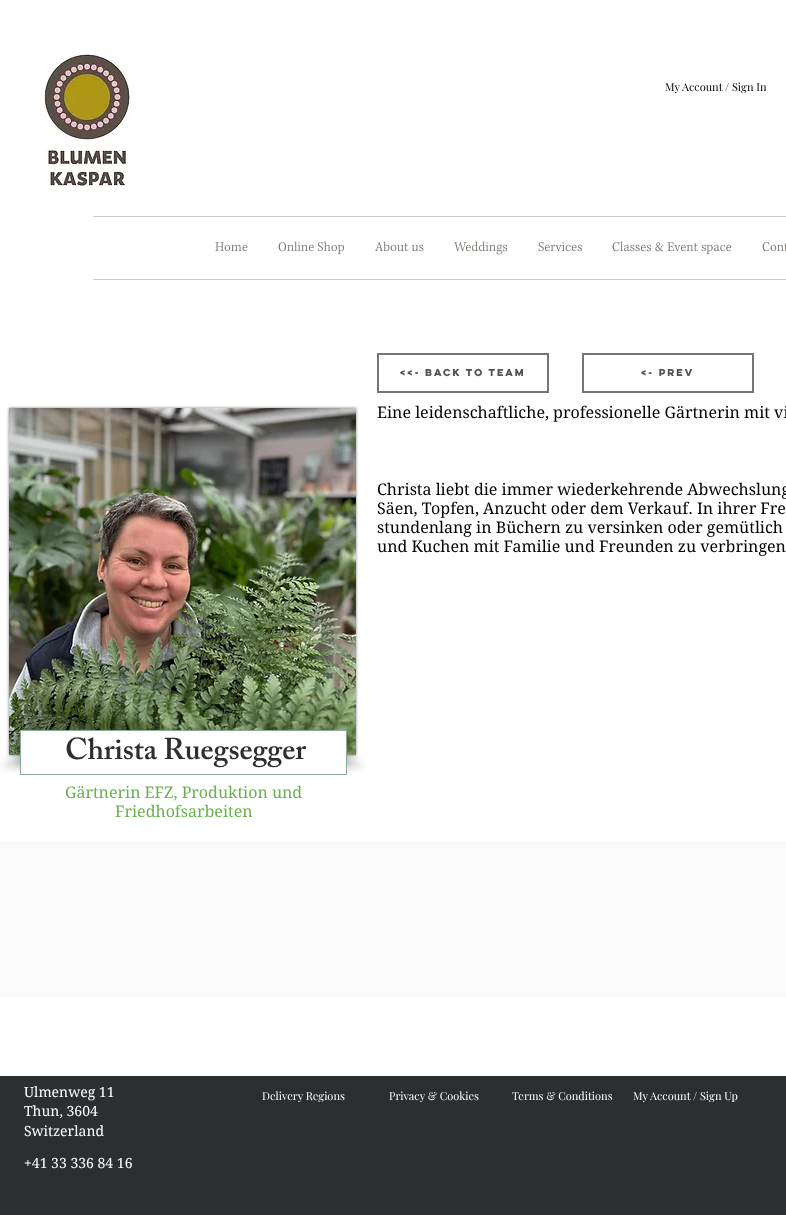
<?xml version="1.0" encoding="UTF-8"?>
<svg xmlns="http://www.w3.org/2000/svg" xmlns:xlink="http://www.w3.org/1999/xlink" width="786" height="1215">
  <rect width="100%" height="100%" fill="#ffffff" />
  <image x="41" y="54" width="92" height="133" xlink:href="image1.png" />
  <rect x="93" y="216" width="693" height="1" fill="#cacaca" />
  <rect x="93" y="279" width="693" height="1" fill="#cacaca" />
  <image x="215" y="242" width="33" height="10" xlink:href="image2.png" />
  <image x="278" y="241" width="66" height="14" xlink:href="image3.png" />
  <image x="374" y="241" width="50" height="11" xlink:href="image4.png" />
  <image x="454" y="241" width="54" height="14" xlink:href="image5.png" />
  <image x="538" y="242" width="44" height="10" xlink:href="image6.png" />
  <image x="612" y="241" width="120" height="14" xlink:href="image7.png" />
  <image x="762" y="242" width="24" height="10" xlink:href="image8.png" />
  <rect x="378" y="354" width="170" height="38" fill="none" stroke="#7b736f" stroke-width="2" />
  <rect x="583" y="354" width="170" height="38" fill="none" stroke="#7b736f" stroke-width="2" />
  <rect x="9" y="408" width="347" height="347" fill="#000000" fill-opacity="0.5" filter="blur(1.5px)" />
  <image x="9" y="408" width="347" height="347" xlink:href="image9.png" />
  <image x="0" y="755" width="20" height="18" xlink:href="image10.png" />
  <image x="347" y="755" width="18" height="18" xlink:href="image11.png" />
  <rect x="21" y="731" width="325" height="27" fill="#ffffff" />
  <rect x="20.5" y="730.5" width="326" height="44" fill="none" stroke="#8baa95" />
  <rect y="841" width="786" height="156" fill="#fafafa" />
  <rect y="1076" width="786" height="139" fill="#2c2e30" />
  <text x="665" y="91" style="font-family: Playfair Display; font-size: 11px; fill: #000000">My Account / Sign In</text>
  <text x="400" y="376" style="font-family: 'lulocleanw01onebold'; font-size: 9px; font-weight: bold; fill: #59514d">&lt;&lt;- Back to Team</text>
  <text x="641" y="376" style="font-family: 'lulocleanw01onebold'; font-size: 9px; font-weight: bold; fill: #59514d">&lt;- Prev</text>
  <text x="377" y="418" style="font-family: 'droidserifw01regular'; font-size: 16px; fill: #000000">Eine leidenschaftliche, professionelle Gärtnerin mit vi</text>
  <text x="377" y="495" style="font-family: 'droidserifw01regular'; font-size: 16px; fill: #000000">Christa liebt die immer wiederkehrende Abwechslung</text>
  <text x="377" y="514" style="font-family: 'droidserifw01regular'; font-size: 16px; fill: #000000">Säen, Topfen, Anzucht oder dem Verkauf. In ihrer Fre</text>
  <text x="377" y="533" style="font-family: 'droidserifw01regular'; font-size: 16px; fill: #000000">stundenlang in Büchern zu versinken oder gemütlich</text>
  <text x="377" y="552" style="font-family: 'droidserifw01regular'; font-size: 16px; fill: #000000">und Kuchen mit Familie und Freunden zu verbringen</text>
  <text x="65" y="759" style="font-family: 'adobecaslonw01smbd'; font-size: 30px; font-weight: 600; fill: #2c2e30">Christa Ruegsegger</text>
  <text x="65" y="798" style="font-family: 'droidserifw01regular'; font-size: 16px; fill: #68b04d">Gärtnerin EFZ, Produktion und</text>
  <text x="115" y="817" style="font-family: 'droidserifw01regular'; font-size: 16px; fill: #68b04d">Friedhofsarbeiten</text>
  <text x="24" y="1097" style="font-family: 'droidserifw01regular'; font-size: 14px; fill: #ffffff">Ulmenweg 11</text>
  <text x="24" y="1116" style="font-family: 'droidserifw01regular'; font-size: 14px; fill: #ffffff">Thun, 3604</text>
  <text x="24" y="1136" style="font-family: 'droidserifw01regular'; font-size: 14px; fill: #ffffff">Switzerland</text>
  <text x="24" y="1168" style="font-family: 'droidserifw01regular'; font-size: 14px; fill: #ffffff">+41 33 336 84 16</text>
  <text x="262" y="1100" style="font-family: Playfair Display; font-size: 11px; fill: #ffffff">Delivery Regions</text>
  <text x="389" y="1100" style="font-family: Playfair Display; font-size: 11px; fill: #ffffff">Privacy &amp; Cookies</text>
  <text x="512" y="1100" style="font-family: Playfair Display; font-size: 11px; fill: #ffffff">Terms &amp; Conditions</text>
  <text x="633" y="1100" style="font-family: Playfair Display; font-size: 11px; fill: #ffffff">My Account / Sign Up</text>
</svg>
